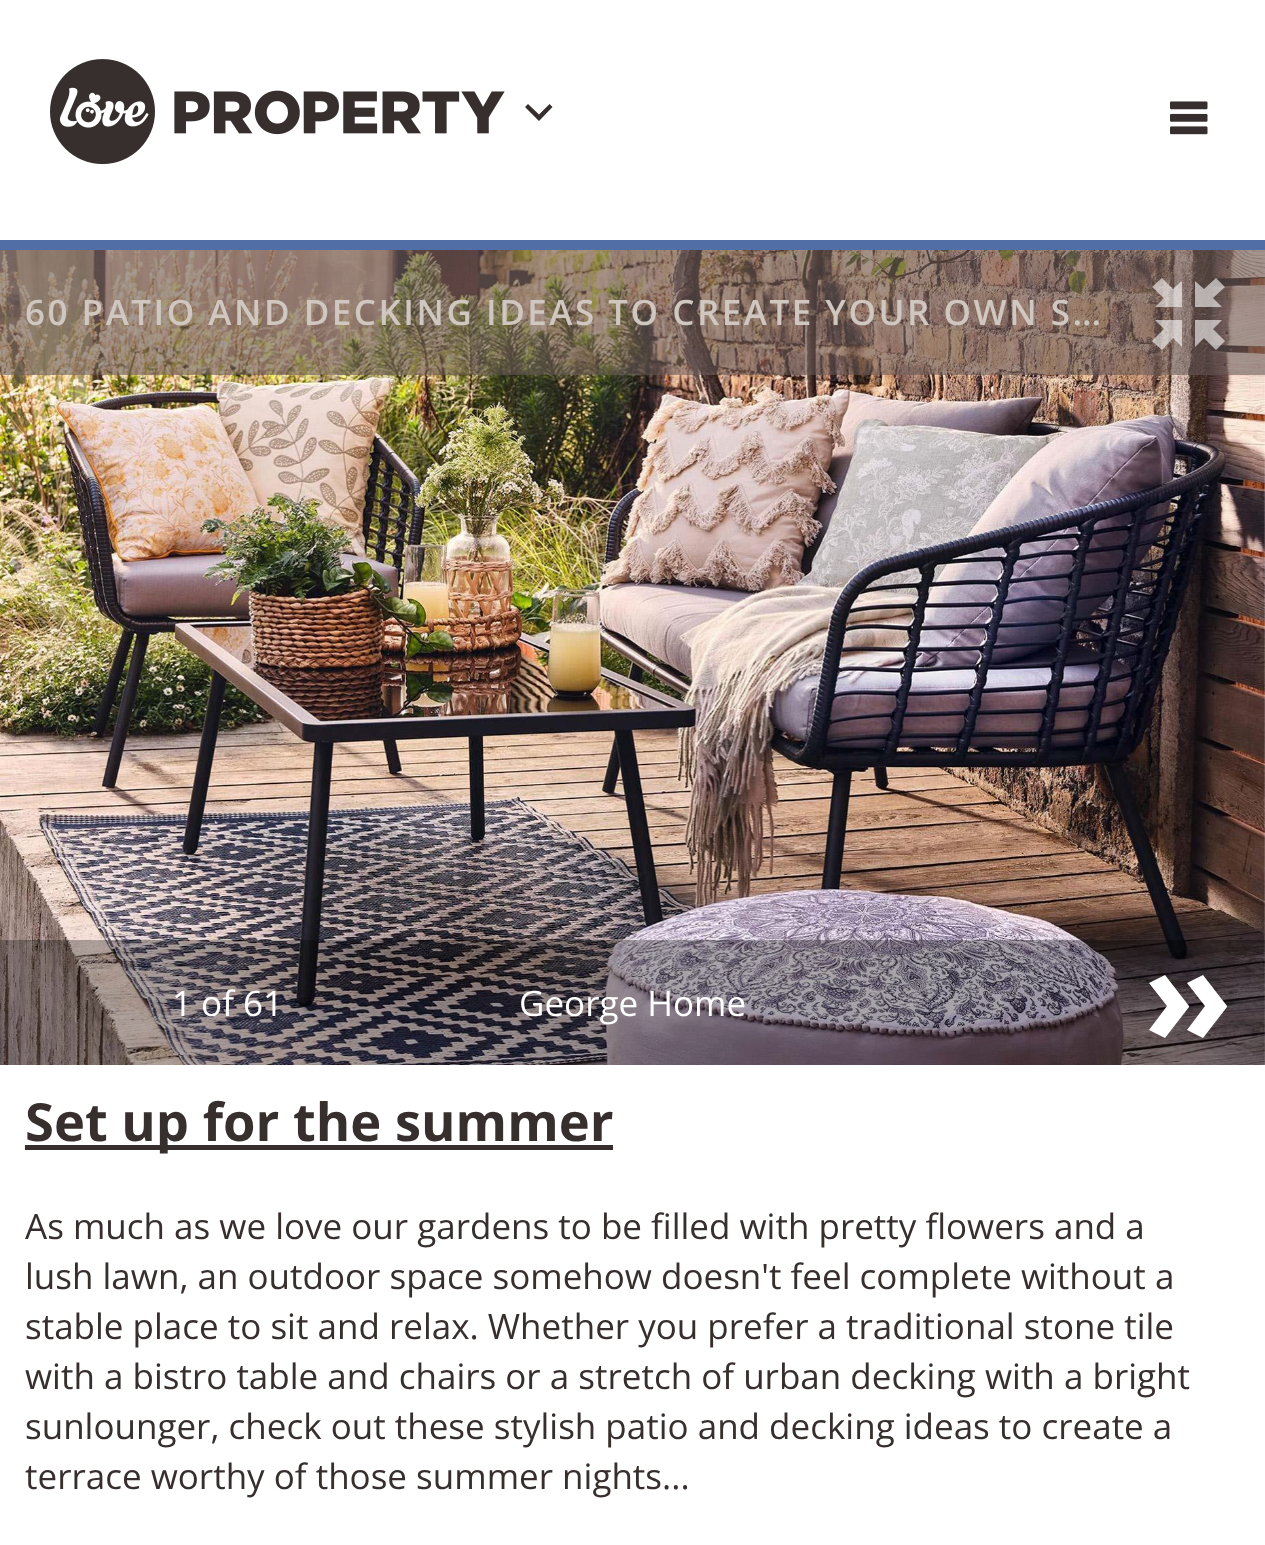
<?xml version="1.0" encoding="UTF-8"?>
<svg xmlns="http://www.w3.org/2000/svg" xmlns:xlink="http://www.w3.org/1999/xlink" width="1265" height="1545">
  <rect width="100%" height="100%" fill="#ffffff" />
  <rect y="240" width="1265" height="10" fill="#526ea7" />
  <image x="50" y="59" width="455" height="106" xlink:href="image1.png" />
  <path d="M 528 104 l -3 3 l 14 14 l 13.5 -14 l -3 -3 l -10.5 10.5 z" fill="#362f2d" />
  <image x="1170" y="101" width="38" height="34" xlink:href="image2.png" />
  <image x="0" y="250" width="1265" height="815" xlink:href="image3.png" />
  <rect y="250" width="1265" height="125" fill="#675956" fill-opacity="0.59" />
  <path d="M 1182 307 h -27 l 9 -9 l -12 -11 l 10 -9 l 11 11 l 9 -8 z m 13 0 h 27 l -9 -9 l 12 -11 l -9 -9 l -12 11 l -9 -8 z m -13 13 h -27 l 9 9 l -12 12 l 10 9 l 11 -12 l 9 9 z m 13 0 h 27 l -9 9 l 12 12 l -9 9 l -12 -12 l -9 9 z" fill="#ffffff" fill-opacity="0.59" />
  <rect y="940" width="1265" height="125" fill="#000000" fill-opacity="0.3" />
  <path d="M 1189 1006 l -24 -31 l -16 8 l 18 23 l -18 24 l 16 8 l 24 -31 z m 14 -31 l -16 8 l 18 23 l -18 24 l 16 8 l 24 -31 v -1 z" fill="#ffffff" />
  <rect x="25" y="1145" width="588" height="5" fill="#362f2d" />
  <text x="25" y="325" style="font-family: Open Sans; font-size: 35px; font-weight: 600; letter-spacing: 2.5px; fill: #cfc7c0">60 PATIO AND DECKING IDEAS TO CREATE YOUR OWN S…</text>
  <text x="172" y="1016" style="font-family: Open Sans; font-size: 35px; fill: #ffffff">1 of 61</text>
  <text x="519" y="1016" style="font-family: Open Sans; font-size: 35px; fill: #ffffff">George Home</text>
  <text x="25" y="1141" style="font-family: Open Sans; font-size: 52.5px; font-weight: bold; fill: #362f2d">Set up for the summer</text>
  <text x="25" y="1239" style="font-family: Open Sans; font-size: 35px; fill: #362f2d">As much as we love our gardens to be filled with pretty flowers and a</text>
  <text x="25" y="1289" style="font-family: Open Sans; font-size: 35px; fill: #362f2d">lush lawn, an outdoor space somehow doesn't feel complete without a</text>
  <text x="25" y="1339" style="font-family: Open Sans; font-size: 35px; fill: #362f2d">stable place to sit and relax. Whether you prefer a traditional stone tile</text>
  <text x="25" y="1389" style="font-family: Open Sans; font-size: 35px; fill: #362f2d">with a bistro table and chairs or a stretch of urban decking with a bright</text>
  <text x="25" y="1439" style="font-family: Open Sans; font-size: 35px; fill: #362f2d">sunlounger, check out these stylish patio and decking ideas to create a</text>
  <text x="25" y="1489" style="font-family: Open Sans; font-size: 35px; fill: #362f2d">terrace worthy of those summer nights...</text>
</svg>
